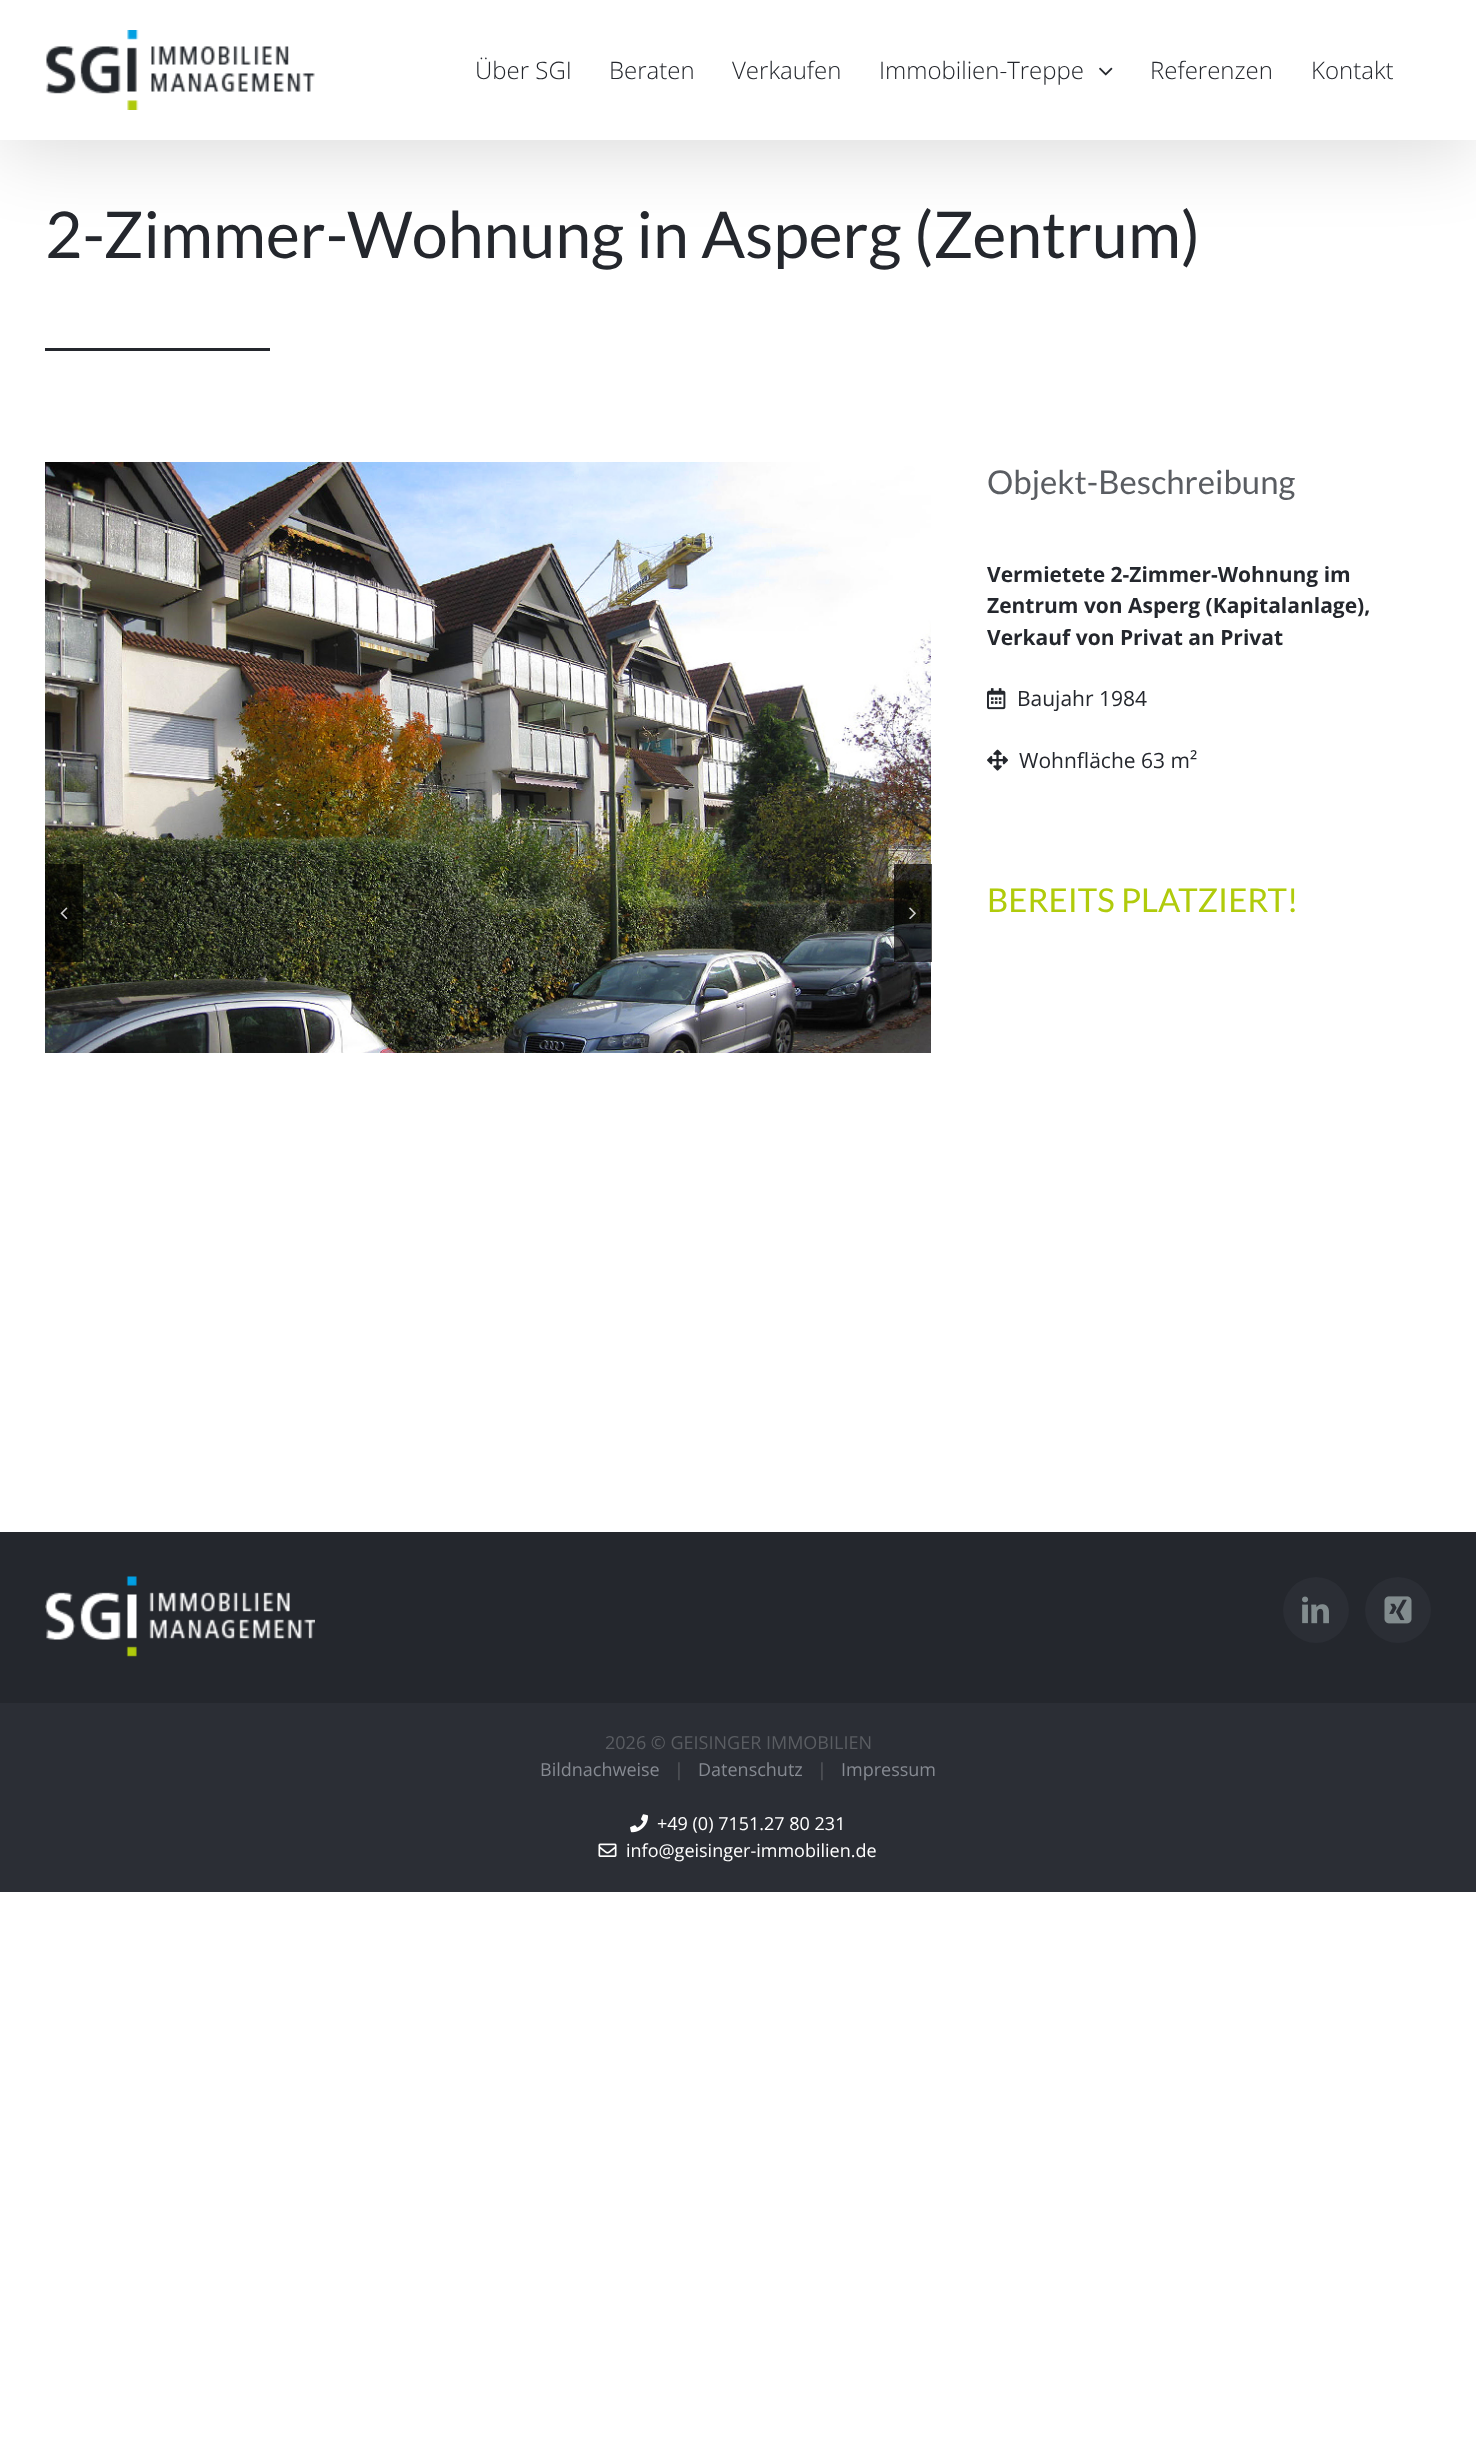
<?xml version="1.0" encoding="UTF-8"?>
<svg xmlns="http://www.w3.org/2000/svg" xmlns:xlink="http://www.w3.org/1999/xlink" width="1476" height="2453">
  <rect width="100%" height="100%" fill="#ffffff" />
  <rect x="3" y="18" width="1470" height="134" fill="#000000" fill-opacity="0.14" filter="blur(37.5px)" />
  <rect width="1476" height="140" fill="#ffffff" />
  <image x="46" y="30" width="269" height="80" xlink:href="image1.png" />
  <image x="1099" y="67" width="14" height="9" xlink:href="image2.png" />
  <rect x="45" y="348" width="225" height="3" fill="#24272d" />
  <image x="45" y="462" width="886" height="591" xlink:href="image3.png" />
  <rect x="45" y="864" width="38" height="98" fill="#000000" fill-opacity="0.68" />
  <image x="60" y="907" width="8" height="13" xlink:href="image4.png" />
  <rect x="894" y="864" width="38" height="98" fill="#000000" fill-opacity="0.68" />
  <image x="909" y="907" width="7" height="13" xlink:href="image5.png" />
  <image x="987" y="688" width="19" height="22" xlink:href="image6.png" />
  <image x="987" y="749" width="21" height="22" xlink:href="image7.png" />
  <rect y="1532" width="1476" height="171" fill="#24272d" />
  <image x="45" y="1576" width="270" height="81" xlink:href="image8.png" />
  <circle cx="1316" cy="1610" r="33" fill="#2b2e35" />
  <image x="1302" y="1596" width="27" height="28" xlink:href="image9.png" />
  <circle cx="1398" cy="1610" r="33" fill="#2b2e35" />
  <image x="1384" y="1596" width="28" height="28" xlink:href="image10.png" />
  <rect y="1703" width="1476" height="189" fill="#2b2e35" />
  <image x="630" y="1814" width="18" height="19" xlink:href="image11.png" />
  <image x="598" y="1843" width="19" height="14" xlink:href="image12.png" />
  <text x="475" y="79" style="font-family: Open Sans; font-size: 24px; font-weight: 300; fill: #24272d">Über SGI</text>
  <text x="609" y="79" style="font-family: Open Sans; font-size: 24px; font-weight: 300; fill: #24272d">Beraten</text>
  <text x="732" y="79" style="font-family: Open Sans; font-size: 24px; font-weight: 300; fill: #24272d">Verkaufen</text>
  <text x="879" y="79" style="font-family: Open Sans; font-size: 24px; font-weight: 300; fill: #24272d">Immobilien-Treppe</text>
  <text x="1150" y="79" style="font-family: Open Sans; font-size: 24px; font-weight: 300; fill: #24272d">Referenzen</text>
  <text x="1311" y="79" style="font-family: Open Sans; font-size: 24px; font-weight: 300; fill: #24272d">Kontakt</text>
  <text x="45" y="258" style="font-family: Lato; font-size: 64.5px; fill: #24272d">2-Zimmer-Wohnung in Asperg (Zentrum)</text>
  <text x="987" y="494" style="font-family: Lato; font-size: 32.9px; fill: #5a5d62">Objekt-Beschreibung</text>
  <text x="987" y="582" style="font-family: Open Sans; font-size: 21px; font-weight: bold; fill: #24272d">Vermietete 2-Zimmer-Wohnung im</text>
  <text x="987" y="613" style="font-family: Open Sans; font-size: 21px; font-weight: bold; fill: #24272d">Zentrum von Asperg (Kapitalanlage),</text>
  <text x="987" y="645" style="font-family: Open Sans; font-size: 21px; font-weight: bold; fill: #24272d">Verkauf von Privat an Privat</text>
  <text x="1017" y="706" style="font-family: Open Sans; font-size: 21px; fill: #24272d">Baujahr 1984</text>
  <text x="1019" y="768" style="font-family: Open Sans; font-size: 21px; fill: #24272d">Wohnfläche 63 m²</text>
  <text x="987" y="912" style="font-family: Lato; font-size: 32.9px; fill: #b0cb0b">BEREITS PLATZIERT!</text>
  <text x="605" y="1749" style="font-family: Open Sans; font-size: 18px; fill: #5a5d62">2026 © GEISINGER IMMOBILIEN</text>
  <text x="540" y="1776" style="font-family: Open Sans; font-size: 18px; fill: #868a92">Bildnachweise</text>
  <text x="674" y="1776" style="font-family: Open Sans; font-size: 18px; fill: #5a5d62">|</text>
  <text x="698" y="1776" style="font-family: Open Sans; font-size: 18px; fill: #868a92">Datenschutz</text>
  <text x="817" y="1776" style="font-family: Open Sans; font-size: 18px; fill: #5a5d62">|</text>
  <text x="841" y="1776" style="font-family: Open Sans; font-size: 18px; fill: #868a92">Impressum</text>
  <text x="657" y="1830" style="font-family: Open Sans; font-size: 18px; fill: #ffffff">+49 (0) 7151.27 80 231</text>
  <text x="626" y="1857" style="font-family: Open Sans; font-size: 18px; fill: #ffffff">info@geisinger-immobilien.de</text>
</svg>
